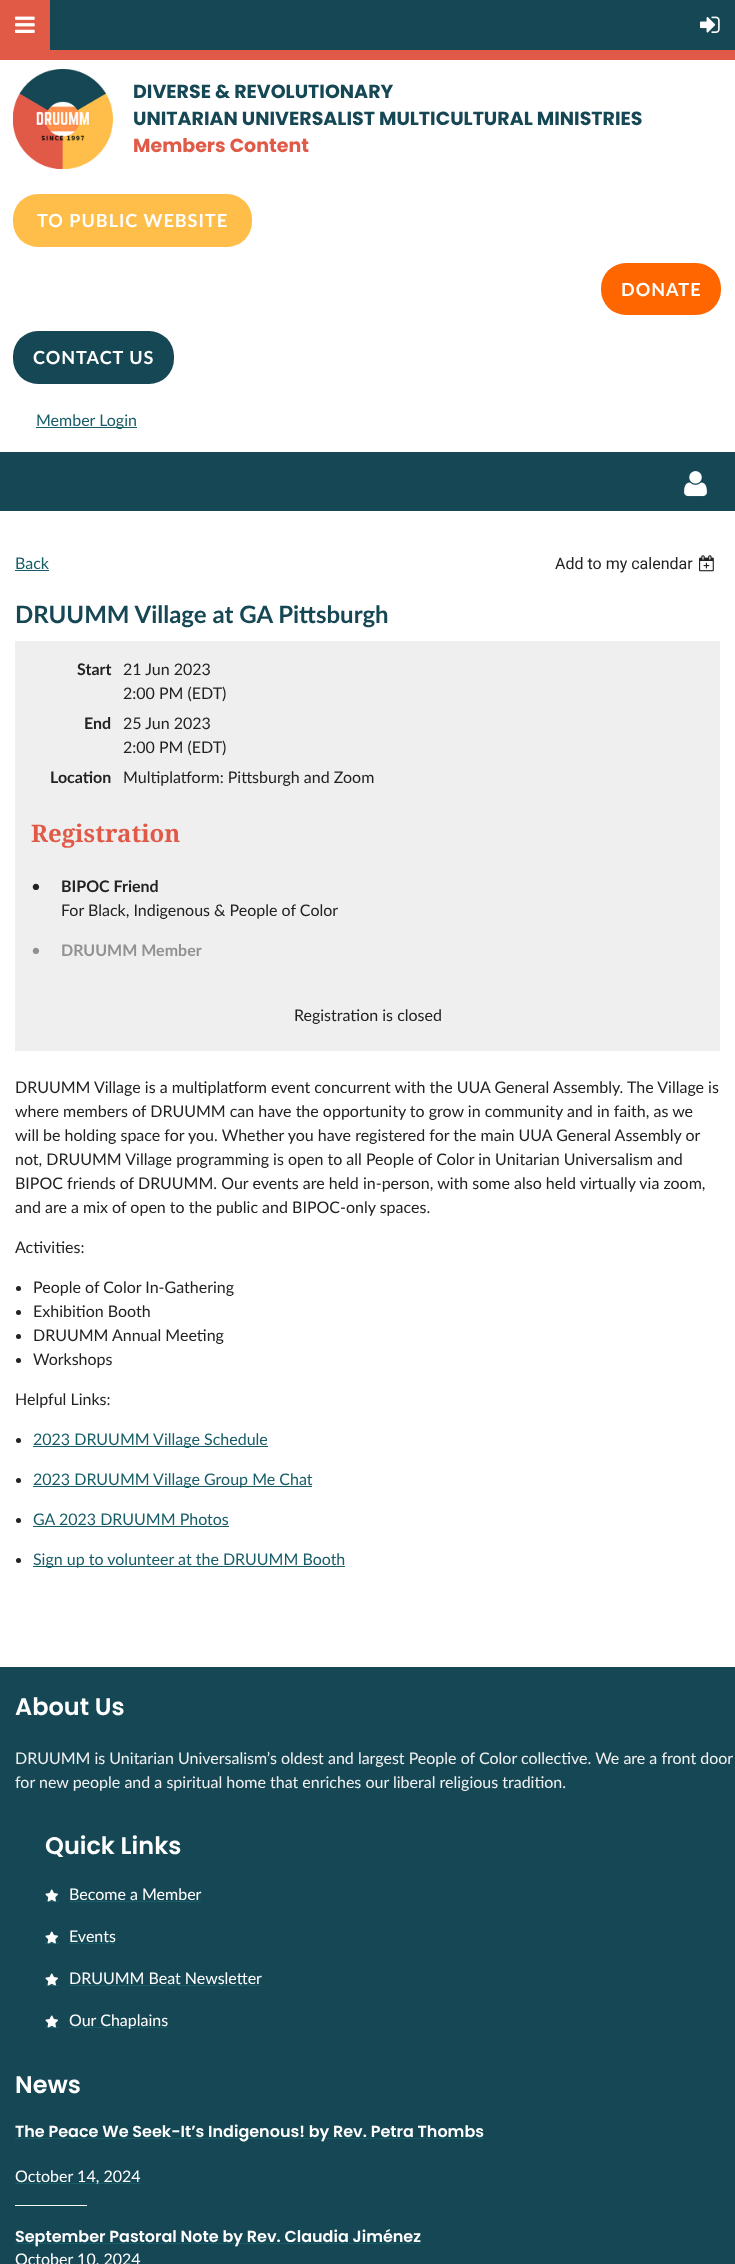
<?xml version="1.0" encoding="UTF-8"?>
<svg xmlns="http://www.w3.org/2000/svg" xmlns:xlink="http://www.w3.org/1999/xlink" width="735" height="2264">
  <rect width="100%" height="100%" fill="#ffffff" />
  <rect x="50" width="685" height="50" fill="#164755" />
  <rect width="50" height="50" fill="#e05a46" />
  <image x="15" y="16" width="20" height="17" xlink:href="image1.png" />
  <image x="700" y="16" width="20" height="17" xlink:href="image2.png" />
  <rect y="50" width="735" height="10" fill="#e05a47" />
  <image x="13" y="69" width="100" height="100" xlink:href="image3.png" />
  <rect x="13" y="194" width="239" height="53" rx="25" fill="#ffbd4a" />
  <rect x="601" y="263" width="120" height="52" rx="25" fill="#ff6600" />
  <rect x="13" y="331" width="161" height="53" rx="25" fill="#164755" />
  <rect x="36" y="427" width="101" height="1" fill="#175d68" />
  <rect y="452" width="735" height="59" fill="#164755" />
  <image x="684" y="471" width="23" height="26" xlink:href="image4.png" />
  <rect x="15" y="570" width="34" height="1" fill="#175d68" />
  <image x="699" y="555" width="15" height="17" xlink:href="image5.png" />
  <rect x="15" y="641" width="705" height="410" fill="#efefef" />
  <circle cx="18.5" cy="1288.5" r="2.5" fill="#222222" />
  <circle cx="18.5" cy="1312.5" r="2.5" fill="#222222" />
  <circle cx="18.5" cy="1336.5" r="2.5" fill="#222222" />
  <circle cx="18.5" cy="1360.5" r="2.5" fill="#222222" />
  <circle cx="18.5" cy="1440.5" r="2.5" fill="#222222" />
  <rect x="33" y="1446" width="235" height="1" fill="#175d68" />
  <circle cx="18.5" cy="1480.5" r="2.5" fill="#222222" />
  <rect x="33" y="1486" width="279" height="1" fill="#175d68" />
  <circle cx="18.5" cy="1520.5" r="2.5" fill="#222222" />
  <rect x="33" y="1526" width="196" height="1" fill="#175d68" />
  <circle cx="18.5" cy="1560.5" r="2.5" fill="#222222" />
  <rect x="33" y="1566" width="312" height="1" fill="#175d68" />
  <rect y="1667" width="735" height="597" fill="#164755" />
  <rect x="45" y="1901" width="14" height="1" fill="#175d68" />
  <image x="45" y="1889" width="13" height="13" xlink:href="image6.png" />
  <rect x="69" y="1901" width="132" height="1" fill="#175d68" />
  <rect x="45" y="1943" width="14" height="1" fill="#175d68" />
  <image x="45" y="1931" width="13" height="13" xlink:href="image6.png" />
  <rect x="69" y="1943" width="46" height="1" fill="#175d68" />
  <rect x="45" y="1985" width="14" height="1" fill="#175d68" />
  <image x="45" y="1973" width="13" height="13" xlink:href="image6.png" />
  <rect x="69" y="1985" width="192" height="1" fill="#175d68" />
  <rect x="45" y="2027" width="14" height="1" fill="#175d68" />
  <image x="45" y="2015" width="13" height="13" xlink:href="image6.png" />
  <rect x="69" y="2027" width="99" height="1" fill="#175d68" />
  <rect x="15" y="2138" width="469" height="1" fill="#175d68" />
  <rect x="15" y="2183" width="126" height="1" fill="#175d68" />
  <rect x="15" y="2205" width="72" height="1" fill="#ffffff" />
  <rect x="15" y="2243" width="406" height="1" fill="#175d68" />
  <text x="133" y="98" style="font-family: Poppins; font-size: 19px; font-weight: bold; fill: #164755">DIVERSE &amp; REVOLUTIONARY</text>
  <text x="133" y="125" style="font-family: Poppins; font-size: 19px; font-weight: bold; fill: #164755">UNITARIAN UNIVERSALIST MULTICULTURAL MINISTRIES</text>
  <text x="133" y="152" style="font-family: Poppins; font-size: 19px; font-weight: bold; fill: #e05a47">Members Content</text>
  <text x="37" y="227" style="font-family: Lato; font-size: 18px; font-weight: bold; letter-spacing: 1px; fill: #ffffff">TO PUBLIC WEBSITE</text>
  <text x="621" y="296" style="font-family: Lato; font-size: 18px; font-weight: bold; letter-spacing: 1px; fill: #ffffff">DONATE</text>
  <text x="33" y="364" style="font-family: Lato; font-size: 18px; font-weight: bold; letter-spacing: 1px; fill: #ffffff">CONTACT US</text>
  <text x="36" y="426" style="font-family: Lato; font-size: 16px; fill: #175d68">Member Login</text>
  <text x="15" y="569" style="font-family: Lato; font-size: 16px; fill: #175d68">Back</text>
  <text x="555" y="569" style="font-family: Roboto; font-size: 16px; fill: #222222">Add to my calendar</text>
  <text x="15" y="623" style="font-family: Lato; font-size: 24px; font-weight: bold; fill: #164755">DRUUMM Village at GA Pittsburgh</text>
  <text x="77" y="675" style="font-family: Lato; font-size: 16px; font-weight: bold; fill: #222222">Start</text>
  <text x="123" y="675" style="font-family: Lato; font-size: 16px; fill: #222222">21 Jun 2023</text>
  <text x="123" y="699" style="font-family: Lato; font-size: 16px; fill: #222222">2:00 PM (EDT)</text>
  <text x="84" y="729" style="font-family: Lato; font-size: 16px; font-weight: bold; fill: #222222">End</text>
  <text x="123" y="729" style="font-family: Lato; font-size: 16px; fill: #222222">25 Jun 2023</text>
  <text x="123" y="753" style="font-family: Lato; font-size: 16px; fill: #222222">2:00 PM (EDT)</text>
  <text x="50" y="783" style="font-family: Lato; font-size: 16px; font-weight: bold; fill: #222222">Location</text>
  <text x="123" y="783" style="font-family: Lato; font-size: 16px; fill: #222222">Multiplatform: Pittsburgh and Zoom</text>
  <text x="31" y="842" style="font-family: Droid Serif; font-size: 24px; font-weight: bold; fill: #e05a47">Registration</text>
  <text x="31" y="892" style="font-family: Lato; font-size: 17px; fill: #222222">•</text>
  <text x="61" y="892" style="font-family: Lato; font-size: 16px; font-weight: bold; fill: #222222">BIPOC Friend</text>
  <text x="61" y="916" style="font-family: Lato; font-size: 16px; fill: #222222">For Black, Indigenous &amp; People of Color</text>
  <text x="31" y="956" style="font-family: Lato; font-size: 17px; fill: #929191">•</text>
  <text x="61" y="956" style="font-family: Lato; font-size: 16px; font-weight: bold; fill: #929191">DRUUMM Member</text>
  <text x="294" y="1021" style="font-family: Lato; font-size: 16px; fill: #222222">Registration is closed</text>
  <text x="15" y="1093" style="font-family: Lato; font-size: 16px; fill: #222222">DRUUMM Village is a multiplatform event concurrent with the UUA General Assembly. The Village is</text>
  <text x="15" y="1117" style="font-family: Lato; font-size: 16px; fill: #222222">where members of DRUUMM can have the opportunity to grow in community and in faith, as we</text>
  <text x="15" y="1141" style="font-family: Lato; font-size: 16px; fill: #222222">will be holding space for you. Whether you have registered for the main UUA General Assembly or</text>
  <text x="15" y="1165" style="font-family: Lato; font-size: 16px; fill: #222222">not, DRUUMM Village programming is open to all People of Color in Unitarian Universalism and</text>
  <text x="15" y="1189" style="font-family: Lato; font-size: 16px; fill: #222222">BIPOC friends of DRUUMM. Our events are held in-person, with some also held virtually via zoom,</text>
  <text x="15" y="1213" style="font-family: Lato; font-size: 16px; fill: #222222">and are a mix of open to the public and BIPOC-only spaces.</text>
  <text x="15" y="1253" style="font-family: Lato; font-size: 16px; fill: #222222">Activities:</text>
  <text x="33" y="1293" style="font-family: Lato; font-size: 16px; fill: #222222">People of Color In-Gathering</text>
  <text x="33" y="1317" style="font-family: Lato; font-size: 16px; fill: #222222">Exhibition Booth</text>
  <text x="33" y="1341" style="font-family: Lato; font-size: 16px; fill: #222222">DRUUMM Annual Meeting</text>
  <text x="33" y="1365" style="font-family: Lato; font-size: 16px; fill: #222222">Workshops</text>
  <text x="15" y="1405" style="font-family: Lato; font-size: 16px; fill: #222222">Helpful Links:</text>
  <text x="33" y="1445" style="font-family: Lato; font-size: 16px; fill: #175d68">2023 DRUUMM Village Schedule</text>
  <text x="33" y="1485" style="font-family: Lato; font-size: 16px; fill: #175d68">2023 DRUUMM Village Group Me Chat</text>
  <text x="33" y="1525" style="font-family: Lato; font-size: 16px; fill: #175d68">GA 2023 DRUUMM Photos</text>
  <text x="33" y="1565" style="font-family: Lato; font-size: 16px; fill: #175d68">Sign up to volunteer at the DRUUMM Booth</text>
  <text x="15" y="1715" style="font-family: Poppins; font-size: 24px; font-weight: 600; fill: #ffffff">About Us</text>
  <text x="15" y="1764" style="font-family: Lato; font-size: 16px; fill: #f1f1f1">DRUUMM is Unitarian Universalism’s oldest and largest People of Color collective. We are a front door</text>
  <text x="15" y="1788" style="font-family: Lato; font-size: 16px; fill: #f1f1f1">for new people and a spiritual home that enriches our liberal religious tradition.</text>
  <text x="45" y="1854" style="font-family: Poppins; font-size: 24px; font-weight: 600; fill: #ffffff">Quick Links</text>
  <text x="69" y="1900" style="font-family: Lato; font-size: 16px; fill: #ffffff">Become a Member</text>
  <text x="69" y="1942" style="font-family: Lato; font-size: 16px; fill: #ffffff">Events</text>
  <text x="69" y="1984" style="font-family: Lato; font-size: 16px; fill: #ffffff">DRUUMM Beat Newsletter</text>
  <text x="69" y="2026" style="font-family: Lato; font-size: 16px; fill: #ffffff">Our Chaplains</text>
  <text x="15" y="2093" style="font-family: Poppins; font-size: 24px; font-weight: 600; fill: #ffffff">News</text>
  <text x="15" y="2137" style="font-family: Poppins; font-size: 16px; font-weight: 600; fill: #ffffff">The Peace We Seek-It’s Indigenous! by Rev. Petra Thombs</text>
  <text x="15" y="2182" style="font-family: Lato; font-size: 16px; fill: #ffffff">October 14, 2024</text>
  <text x="15" y="2242" style="font-family: Poppins; font-size: 16px; font-weight: 600; fill: #ffffff">September Pastoral Note by Rev. Claudia Jiménez</text>
  <text x="15" y="2265" style="font-family: Lato; font-size: 16px; fill: #ffffff">October 10, 2024</text>
</svg>
